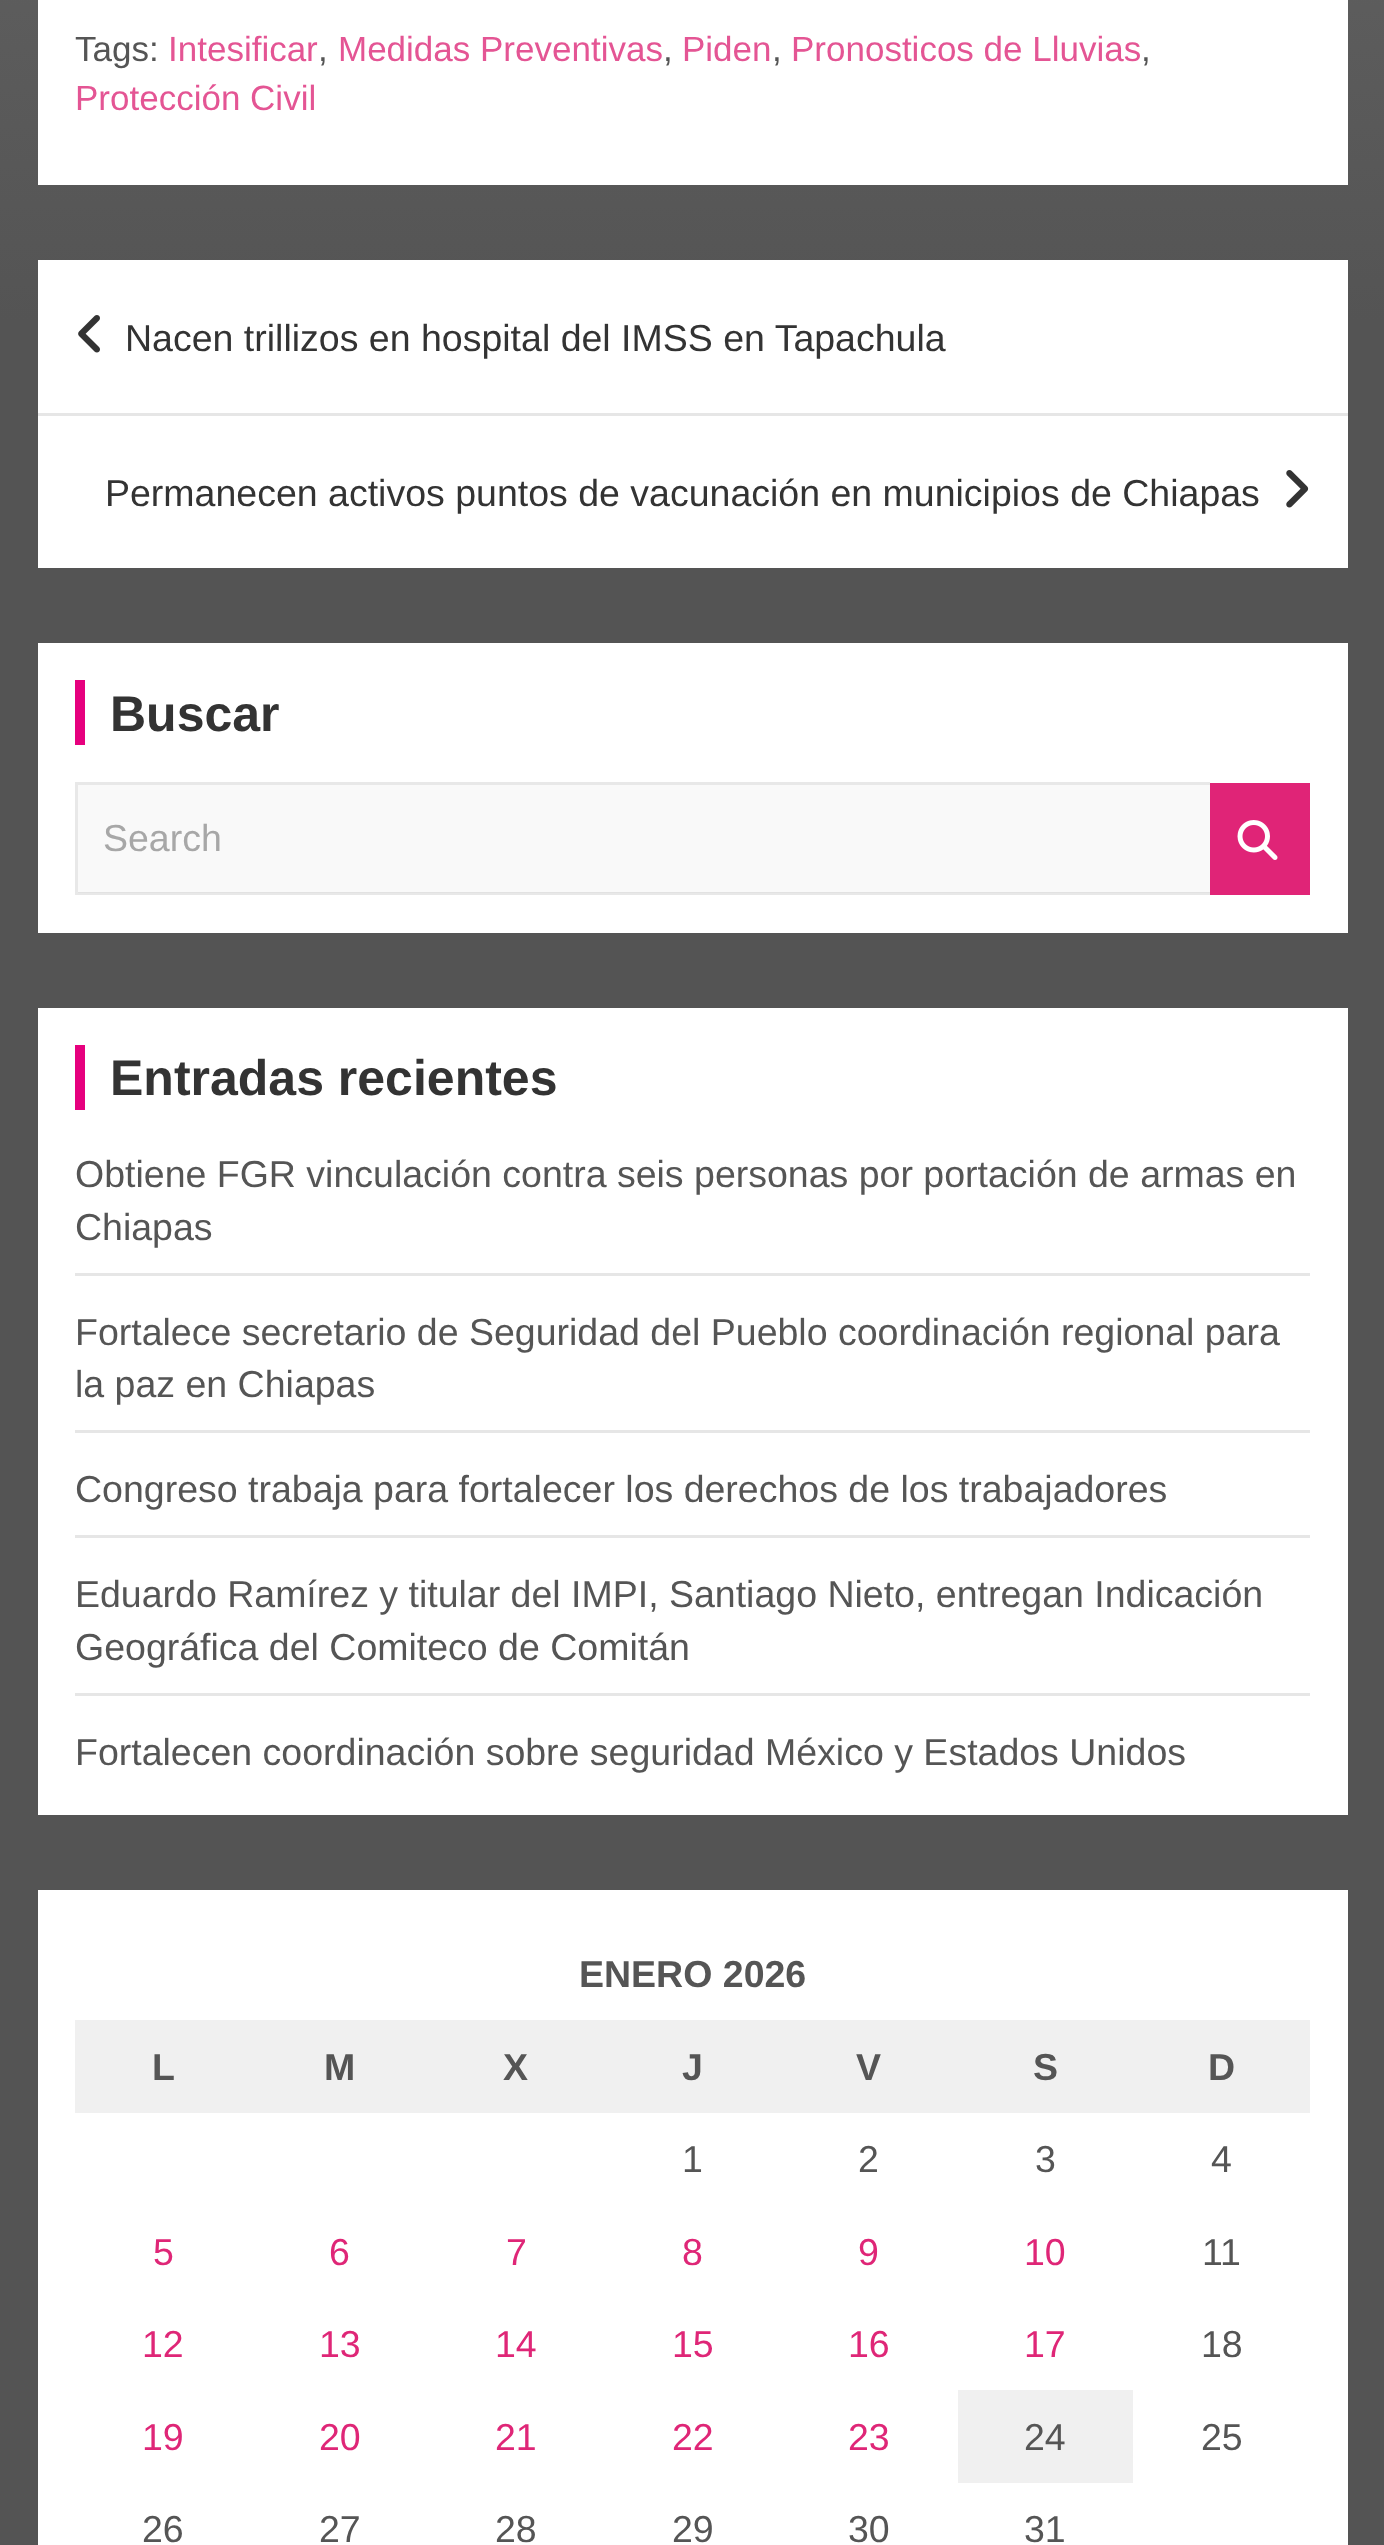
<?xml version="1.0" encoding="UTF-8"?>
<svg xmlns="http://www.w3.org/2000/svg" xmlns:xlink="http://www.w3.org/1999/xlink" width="1384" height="2545">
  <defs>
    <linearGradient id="g1" gradientUnits="userSpaceOnUse" x1="692" y1="-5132" x2="693" y2="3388"><stop offset="0.04" stop-color="#d7d7d7" /><stop offset="0.64" stop-color="#545454" /></linearGradient>
  </defs>
  <rect width="100%" height="100%" fill="#ffffff" />
  <rect width="1384" height="2545" fill="url(#g1)" />
  <rect x="38" width="1310" height="185" fill="#ffffff" />
  <rect x="38" y="260" width="1310" height="308" fill="#ffffff" />
  <rect x="38" y="413" width="1310" height="3" fill="#e6e6e6" />
  <image x="78" y="315" width="22" height="38" xlink:href="image1.png" />
  <image x="1286" y="470" width="23" height="38" xlink:href="image2.png" />
  <rect x="38" y="643" width="1310" height="290" fill="#ffffff" />
  <rect x="75" y="680" width="10" height="65" fill="#e6007e" />
  <rect x="78" y="785" width="1132" height="108" fill="#f9f9f9" />
  <path d="M 75 782 h 1135 v 3 h -1132 z" fill="#e8e8e8" />
  <path d="M 1210 895 h -1135 l 3 -3 h 1132 z" fill="#000000" fill-opacity="0.09" />
  <path d="M 75 895 v -113 l 3 3 v 107 z" fill="#000000" fill-opacity="0.09" />
  <rect x="1210" y="783" width="100" height="112" fill="#e02477" />
  <image x="1237" y="820" width="41" height="40" xlink:href="image3.png" />
  <rect x="38" y="1008" width="1310" height="807" fill="#ffffff" />
  <rect x="75" y="1045" width="10" height="65" fill="#e6007e" />
  <rect x="75" y="1273" width="1235" height="3" fill="#e6e6e6" />
  <rect x="75" y="1430" width="1235" height="3" fill="#e6e6e6" />
  <rect x="75" y="1535" width="1235" height="3" fill="#e6e6e6" />
  <rect x="75" y="1693" width="1235" height="3" fill="#e6e6e6" />
  <rect x="38" y="1890" width="1310" height="655" fill="#ffffff" />
  <rect x="75" y="2020" width="1235" height="93" fill="#f0f0f0" />
  <rect x="958" y="2390" width="175" height="93" fill="#f0f0f0" />
  <text x="75" y="61" style="font-family: Liberation Sans; font-size: 35px; fill: #555555">Tags:</text>
  <text x="168" y="61" style="font-family: Liberation Sans; font-size: 35px; fill: #e45594">Intesificar</text>
  <text x="318" y="61" style="font-family: Liberation Sans; font-size: 35px; fill: #555555">,</text>
  <text x="338" y="61" style="font-family: Liberation Sans; font-size: 35px; fill: #e45594">Medidas Preventivas</text>
  <text x="663" y="61" style="font-family: Liberation Sans; font-size: 35px; fill: #555555">,</text>
  <text x="682" y="61" style="font-family: Liberation Sans; font-size: 35px; fill: #e45594">Piden</text>
  <text x="772" y="61" style="font-family: Liberation Sans; font-size: 35px; fill: #555555">,</text>
  <text x="791" y="61" style="font-family: Liberation Sans; font-size: 35px; fill: #e45594">Pronosticos de Lluvias</text>
  <text x="1141" y="61" style="font-family: Liberation Sans; font-size: 35px; fill: #555555">,</text>
  <text x="75" y="110" style="font-family: Liberation Sans; font-size: 35px; fill: #e45594">Protección Civil</text>
  <text x="125" y="351" style="font-family: Liberation Sans; font-size: 37.5px; fill: #333333">Nacen trillizos en hospital del IMSS en Tapachula</text>
  <text x="105" y="506" style="font-family: Liberation Sans; font-size: 37.5px; fill: #333333">Permanecen activos puntos de vacunación en municipios de Chiapas</text>
  <text x="110" y="731" style="font-family: Liberation Sans; font-size: 50px; font-weight: bold; fill: #333333">Buscar</text>
  <text x="103" y="851" style="font-family: Liberation Sans; font-size: 37.5px; fill: #a7a7a7">Search</text>
  <text x="110" y="1095" style="font-family: Liberation Sans; font-size: 50px; font-weight: bold; fill: #333333">Entradas recientes</text>
  <text x="75" y="1187" style="font-family: Liberation Sans; font-size: 37.5px; fill: #555555">Obtiene FGR vinculación contra seis personas por portación de armas en</text>
  <text x="75" y="1240" style="font-family: Liberation Sans; font-size: 37.5px; fill: #555555">Chiapas</text>
  <text x="75" y="1345" style="font-family: Liberation Sans; font-size: 37.5px; fill: #555555">Fortalece secretario de Seguridad del Pueblo coordinación regional para</text>
  <text x="75" y="1397" style="font-family: Liberation Sans; font-size: 37.5px; fill: #555555">la paz en Chiapas</text>
  <text x="75" y="1502" style="font-family: Liberation Sans; font-size: 37.5px; fill: #555555">Congreso trabaja para fortalecer los derechos de los trabajadores</text>
  <text x="75" y="1607" style="font-family: Liberation Sans; font-size: 37.5px; fill: #555555">Eduardo Ramírez y titular del IMPI, Santiago Nieto, entregan Indicación</text>
  <text x="75" y="1660" style="font-family: Liberation Sans; font-size: 37.5px; fill: #555555">Geográfica del Comiteco de Comitán</text>
  <text x="75" y="1765" style="font-family: Liberation Sans; font-size: 37.5px; fill: #555555">Fortalecen coordinación sobre seguridad México y Estados Unidos</text>
  <text x="579" y="1987" style="font-family: Liberation Sans; font-size: 37.5px; font-weight: bold; fill: #555555">ENERO 2026</text>
  <text x="152" y="2080" style="font-family: Liberation Sans; font-size: 37.5px; font-weight: bold; fill: #555555">L</text>
  <text x="324" y="2080" style="font-family: Liberation Sans; font-size: 37.5px; font-weight: bold; fill: #555555">M</text>
  <text x="503" y="2080" style="font-family: Liberation Sans; font-size: 37.5px; font-weight: bold; fill: #555555">X</text>
  <text x="682" y="2080" style="font-family: Liberation Sans; font-size: 37.5px; font-weight: bold; fill: #555555">J</text>
  <text x="856" y="2080" style="font-family: Liberation Sans; font-size: 37.5px; font-weight: bold; fill: #555555">V</text>
  <text x="1033" y="2080" style="font-family: Liberation Sans; font-size: 37.5px; font-weight: bold; fill: #555555">S</text>
  <text x="1208" y="2080" style="font-family: Liberation Sans; font-size: 37.5px; font-weight: bold; fill: #555555">D</text>
  <text x="682" y="2172" style="font-family: Liberation Sans; font-size: 37.5px; fill: #555555">1</text>
  <text x="858" y="2172" style="font-family: Liberation Sans; font-size: 37.5px; fill: #555555">2</text>
  <text x="1035" y="2172" style="font-family: Liberation Sans; font-size: 37.5px; fill: #555555">3</text>
  <text x="1211" y="2172" style="font-family: Liberation Sans; font-size: 37.5px; fill: #555555">4</text>
  <text x="153" y="2265" style="font-family: Liberation Sans; font-size: 37.5px; fill: #df2677">5</text>
  <text x="329" y="2265" style="font-family: Liberation Sans; font-size: 37.5px; fill: #df2677">6</text>
  <text x="506" y="2265" style="font-family: Liberation Sans; font-size: 37.5px; fill: #df2677">7</text>
  <text x="682" y="2265" style="font-family: Liberation Sans; font-size: 37.5px; fill: #df2677">8</text>
  <text x="858" y="2265" style="font-family: Liberation Sans; font-size: 37.5px; fill: #df2677">9</text>
  <text x="1024" y="2265" style="font-family: Liberation Sans; font-size: 37.5px; fill: #df2677">10</text>
  <text x="1202" y="2265" style="font-family: Liberation Sans; font-size: 37.5px; fill: #555555">11</text>
  <text x="142" y="2357" style="font-family: Liberation Sans; font-size: 37.5px; fill: #df2677">12</text>
  <text x="319" y="2357" style="font-family: Liberation Sans; font-size: 37.5px; fill: #df2677">13</text>
  <text x="495" y="2357" style="font-family: Liberation Sans; font-size: 37.5px; fill: #df2677">14</text>
  <text x="672" y="2357" style="font-family: Liberation Sans; font-size: 37.5px; fill: #df2677">15</text>
  <text x="848" y="2357" style="font-family: Liberation Sans; font-size: 37.5px; fill: #df2677">16</text>
  <text x="1024" y="2357" style="font-family: Liberation Sans; font-size: 37.5px; fill: #df2677">17</text>
  <text x="1201" y="2357" style="font-family: Liberation Sans; font-size: 37.5px; fill: #555555">18</text>
  <text x="142" y="2450" style="font-family: Liberation Sans; font-size: 37.5px; fill: #df2677">19</text>
  <text x="319" y="2450" style="font-family: Liberation Sans; font-size: 37.5px; fill: #df2677">20</text>
  <text x="495" y="2450" style="font-family: Liberation Sans; font-size: 37.5px; fill: #df2677">21</text>
  <text x="672" y="2450" style="font-family: Liberation Sans; font-size: 37.5px; fill: #df2677">22</text>
  <text x="848" y="2450" style="font-family: Liberation Sans; font-size: 37.5px; fill: #df2677">23</text>
  <text x="1024" y="2450" style="font-family: Liberation Sans; font-size: 37.5px; fill: #555555">24</text>
  <text x="1201" y="2450" style="font-family: Liberation Sans; font-size: 37.5px; fill: #555555">25</text>
  <text x="142" y="2542" style="font-family: Liberation Sans; font-size: 37.5px; fill: #555555">26</text>
  <text x="319" y="2542" style="font-family: Liberation Sans; font-size: 37.5px; fill: #555555">27</text>
  <text x="495" y="2542" style="font-family: Liberation Sans; font-size: 37.5px; fill: #555555">28</text>
  <text x="672" y="2542" style="font-family: Liberation Sans; font-size: 37.5px; fill: #555555">29</text>
  <text x="848" y="2542" style="font-family: Liberation Sans; font-size: 37.5px; fill: #555555">30</text>
  <text x="1024" y="2542" style="font-family: Liberation Sans; font-size: 37.5px; fill: #555555">31</text>
</svg>
